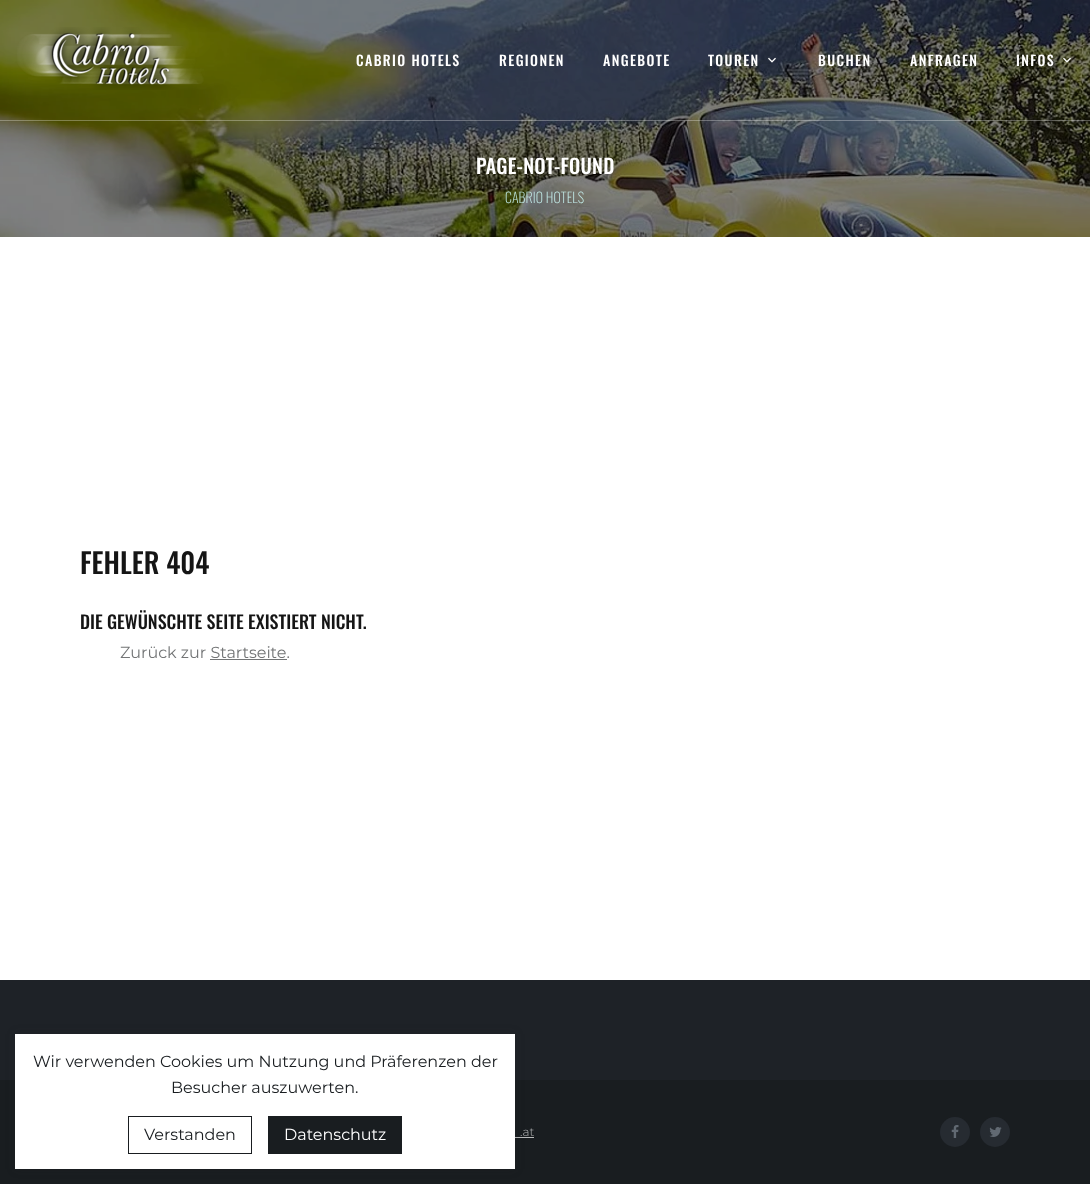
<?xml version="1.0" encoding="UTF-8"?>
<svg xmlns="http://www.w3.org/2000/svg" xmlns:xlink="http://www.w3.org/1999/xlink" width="1090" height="1184">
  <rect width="100%" height="100%" fill="#ffffff" />
  <image x="0" y="0" width="1090" height="237" xlink:href="image4.png" />
  <rect y="120" width="1090" height="1" fill="#ffffff" fill-opacity="0.3" />
  <image x="17" y="27" width="187" height="63" xlink:href="image1.png" />
  <image x="768" y="57" width="8" height="6" xlink:href="image2.png" />
  <image x="1063" y="57" width="8" height="6" xlink:href="image3.png" />
  <rect x="210" y="659" width="77" height="1" fill="#737576" />
  <rect y="980" width="1090" height="100" fill="#1e2227" />
  <rect y="1080" width="1090" height="104" fill="#191d20" />
  <rect x="515" y="1137" width="19" height="1" fill="#babbbc" />
  <circle cx="955" cy="1132" r="15" fill="#262b31" />
  <image x="951" y="1125" width="8" height="13" xlink:href="image5.png" />
  <circle cx="995" cy="1132" r="15" fill="#262b31" />
  <image x="989" y="1127" width="13" height="10" xlink:href="image6.png" />
  <rect x="15" y="1034" width="500" height="135" fill="#202020" fill-opacity="0.2" filter="blur(5px)" />
  <rect x="15" y="1034" width="500" height="135" fill="#ffffff" />
  <rect x="128.5" y="1116.5" width="123" height="37" fill="none" stroke="#191d20" />
  <rect x="268" y="1116" width="134" height="38" fill="#191d20" />
  <text x="356" y="66" style="font-family: Oswald; font-size: 14px; font-weight: 500; letter-spacing: 1.4px; fill: #ffffff">CABRIO HOTELS</text>
  <text x="499" y="66" style="font-family: Oswald; font-size: 14px; font-weight: 500; letter-spacing: 1.4px; fill: #ffffff">REGIONEN</text>
  <text x="603" y="66" style="font-family: Oswald; font-size: 14px; font-weight: 500; letter-spacing: 1.4px; fill: #ffffff">ANGEBOTE</text>
  <text x="708" y="66" style="font-family: Oswald; font-size: 14px; font-weight: 500; letter-spacing: 1.4px; fill: #ffffff">TOUREN</text>
  <text x="818" y="66" style="font-family: Oswald; font-size: 14px; font-weight: 500; letter-spacing: 1.4px; fill: #ffffff">BUCHEN</text>
  <text x="910" y="66" style="font-family: Oswald; font-size: 14px; font-weight: 500; letter-spacing: 1.4px; fill: #ffffff">ANFRAGEN</text>
  <text x="1016" y="66" style="font-family: Oswald; font-size: 14px; font-weight: 500; letter-spacing: 1.4px; fill: #ffffff">INFOS</text>
  <text x="476" y="174" style="font-family: Oswald; font-size: 20px; font-weight: 500; letter-spacing: 0.25px; fill: #ffffff">PAGE-NOT-FOUND</text>
  <text x="505" y="203" style="font-family: Oswald; font-size: 14px; font-weight: 200; letter-spacing: 0.1px; fill: #c4eeec">CABRIO HOTELS</text>
  <text x="80" y="574" style="font-family: Oswald; font-size: 28px; font-weight: 500; fill: #151515">FEHLER 404</text>
  <text x="80" y="629" style="font-family: Oswald; font-size: 18px; font-weight: 500; fill: #151515">DIE GEWÜNSCHTE SEITE EXISTIERT NICHT.</text>
  <text x="120" y="658" style="font-family: Montserrat; font-size: 16px; fill: #737576">Zurück zur Startseite.</text>
  <text x="520" y="1136" style="font-family: Montserrat; font-size: 12px; font-weight: 300; fill: #babbbc">.at</text>
  <text x="33" y="1067" style="font-family: Montserrat; font-size: 16px; fill: #191d20">Wir verwenden Cookies um Nutzung und Präferenzen der</text>
  <text x="171" y="1093" style="font-family: Montserrat; font-size: 16px; fill: #191d20">Besucher auszuwerten.</text>
  <text x="144" y="1140" style="font-family: Montserrat; font-size: 16px; fill: #191d20">Verstanden</text>
  <text x="284" y="1140" style="font-family: Montserrat; font-size: 16px; fill: #ffffff">Datenschutz</text>
</svg>
